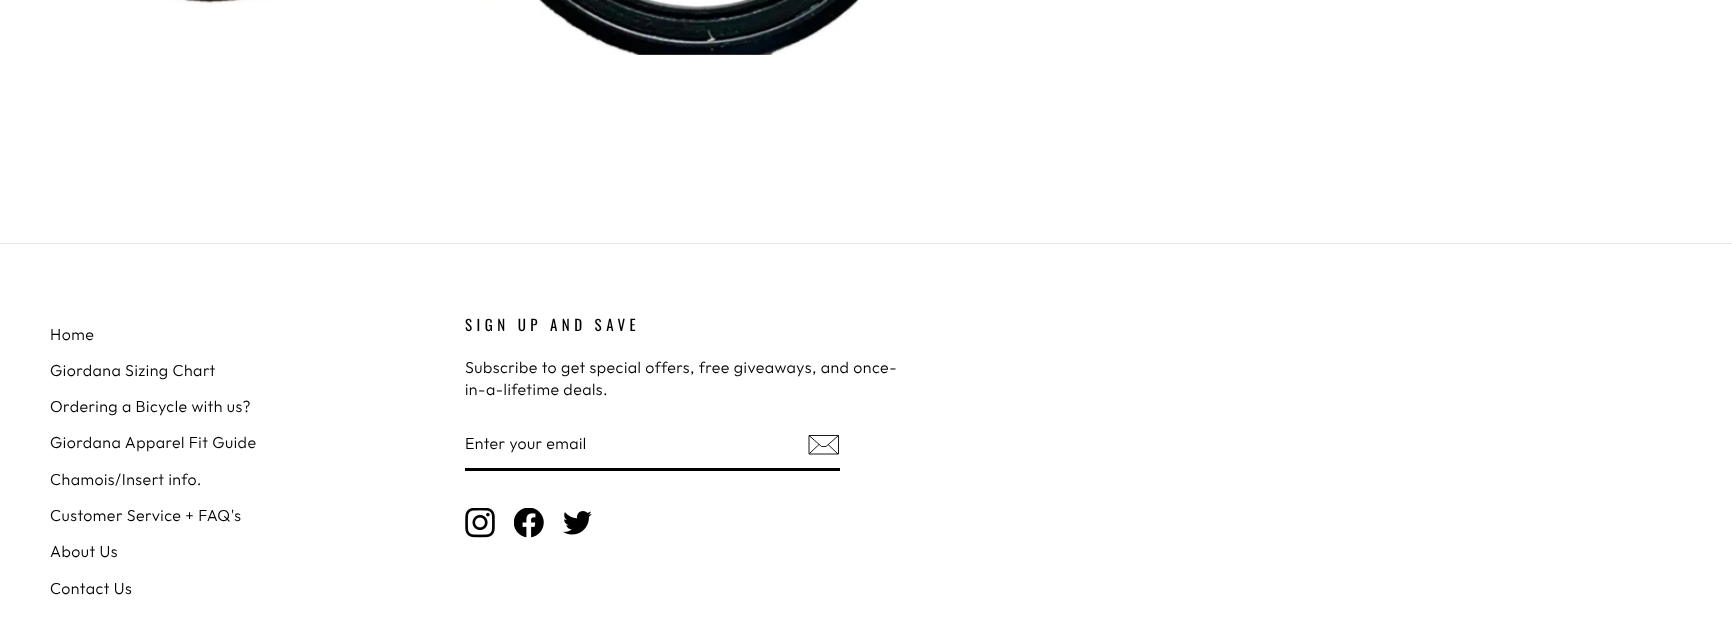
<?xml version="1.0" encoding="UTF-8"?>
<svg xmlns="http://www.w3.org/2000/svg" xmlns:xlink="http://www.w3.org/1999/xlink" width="1732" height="635">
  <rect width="100%" height="100%" fill="#ffffff" />
  <image x="170" y="0" width="690" height="55" xlink:href="image1.png" />
  <rect y="243" width="1732" height="1" fill="#e8e8e1" />
  <rect x="465" y="468" width="375" height="3" fill="#000000" />
  <path d="M 838.5 454 h -29.5 v -18.5 h 29.5 z m -29.5 -18.5 l 12.5 11 h 4.5 l 12.5 -11 m -19.5 9 l -9.5 9 m 28.5 0.5 l -10 -9.5" fill="none" stroke="#000000" stroke-width="0.9" />
  <image x="465" y="508" width="30" height="30" xlink:href="image2.png" />
  <image x="514" y="508" width="30" height="30" xlink:href="image3.png" />
  <image x="563" y="511" width="29" height="24" xlink:href="image4.png" />
  <text x="50" y="340" style="font-family: Outfit; font-size: 15.95px; font-weight: 300; letter-spacing: 0.47px; fill: #000000">Home</text>
  <text x="50" y="376" style="font-family: Outfit; font-size: 15.95px; font-weight: 300; letter-spacing: 0.47px; fill: #000000">Giordana Sizing Chart</text>
  <text x="50" y="412" style="font-family: Outfit; font-size: 15.95px; font-weight: 300; letter-spacing: 0.47px; fill: #000000">Ordering a Bicycle with us?</text>
  <text x="50" y="448" style="font-family: Outfit; font-size: 15.95px; font-weight: 300; letter-spacing: 0.47px; fill: #000000">Giordana Apparel Fit Guide</text>
  <text x="50" y="485" style="font-family: Outfit; font-size: 15.95px; font-weight: 300; letter-spacing: 0.47px; fill: #000000">Chamois/Insert info.</text>
  <text x="50" y="521" style="font-family: Outfit; font-size: 15.95px; font-weight: 300; letter-spacing: 0.47px; fill: #000000">Customer Service + FAQ's</text>
  <text x="50" y="557" style="font-family: Outfit; font-size: 15.95px; font-weight: 300; letter-spacing: 0.47px; fill: #000000">About Us</text>
  <text x="50" y="594" style="font-family: Outfit; font-size: 15.95px; font-weight: 300; letter-spacing: 0.47px; fill: #000000">Contact Us</text>
  <text x="465" y="331" style="font-family: Oswald; font-size: 15px; letter-spacing: 4.5px; fill: #000000">SIGN UP AND SAVE</text>
  <text x="465" y="373" style="font-family: Outfit; font-size: 15.95px; font-weight: 300; letter-spacing: 0.47px; fill: #000000">Subscribe to get special offers, free giveaways, and once-</text>
  <text x="465" y="395" style="font-family: Outfit; font-size: 15.95px; font-weight: 300; letter-spacing: 0.47px; fill: #000000">in-a-lifetime deals.</text>
  <text x="465" y="449" style="font-family: Outfit; font-size: 15.95px; font-weight: 300; letter-spacing: 0.4px; fill: #000000">Enter your email</text>
</svg>
